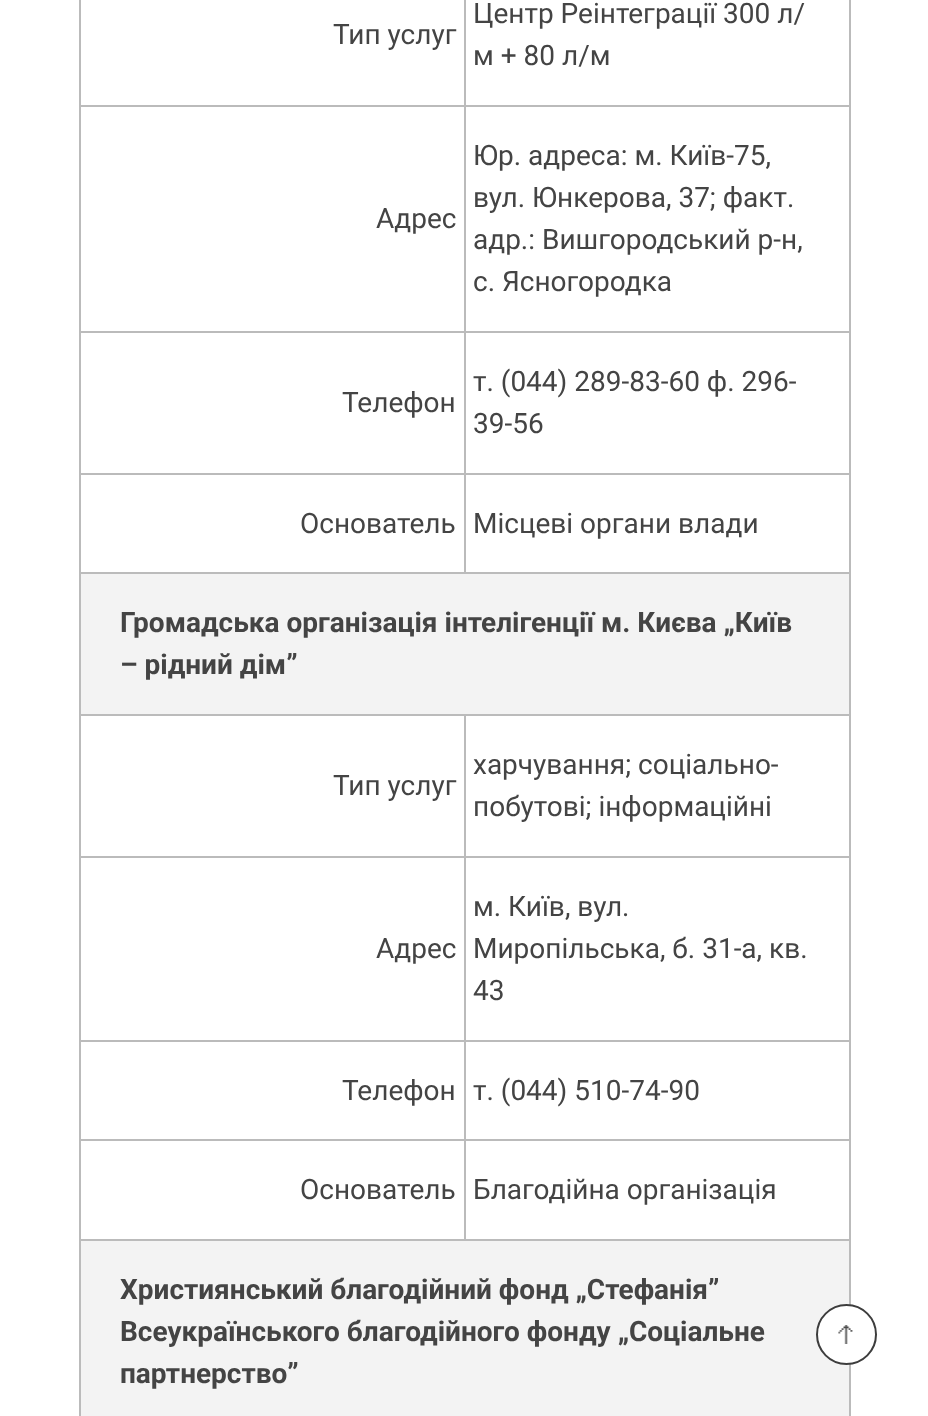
<?xml version="1.0" encoding="UTF-8"?>
<svg xmlns="http://www.w3.org/2000/svg" xmlns:xlink="http://www.w3.org/1999/xlink" width="928" height="1416">
  <rect width="100%" height="100%" fill="#ffffff" />
  <rect x="464" y="105" width="387" height="2" fill="#bbbbbb" />
  <rect x="464" y="331" width="387" height="2" fill="#bbbbbb" />
  <rect x="464" y="473" width="387" height="2" fill="#bbbbbb" />
  <rect x="79" y="572" width="772" height="2" fill="#bbbbbb" />
  <rect x="464" y="473" width="2" height="101" fill="#bbbbbb" />
  <rect x="79" y="473" width="387" height="2" fill="#bbbbbb" />
  <rect x="464" y="331" width="2" height="143" fill="#bbbbbb" />
  <rect x="79" y="331" width="387" height="2" fill="#bbbbbb" />
  <rect x="464" y="105" width="2" height="228" fill="#bbbbbb" />
  <rect x="79" y="105" width="387" height="2" fill="#bbbbbb" />
  <rect x="464" width="2" height="107" fill="#bbbbbb" />
  <rect x="464" y="714" width="387" height="2" fill="#bbbbbb" />
  <rect x="464" y="856" width="387" height="2" fill="#bbbbbb" />
  <rect x="464" y="1040" width="387" height="2" fill="#bbbbbb" />
  <rect x="464" y="1139" width="387" height="2" fill="#bbbbbb" />
  <rect x="79" y="1239" width="772" height="2" fill="#bbbbbb" />
  <rect x="464" y="1139" width="2" height="102" fill="#bbbbbb" />
  <rect x="79" y="1139" width="387" height="2" fill="#bbbbbb" />
  <rect x="464" y="1040" width="2" height="101" fill="#bbbbbb" />
  <rect x="79" y="1040" width="387" height="2" fill="#bbbbbb" />
  <rect x="464" y="856" width="2" height="185" fill="#bbbbbb" />
  <rect x="79" y="856" width="387" height="2" fill="#bbbbbb" />
  <rect x="464" y="714" width="2" height="144" fill="#bbbbbb" />
  <rect x="79" y="714" width="387" height="2" fill="#bbbbbb" />
  <rect x="79" y="1239" width="2" height="177" fill="#bbbbbb" />
  <rect x="79" y="1139" width="2" height="102" fill="#bbbbbb" />
  <rect x="79" y="1040" width="2" height="101" fill="#bbbbbb" />
  <rect x="79" y="856" width="2" height="185" fill="#bbbbbb" />
  <rect x="79" y="714" width="2" height="144" fill="#bbbbbb" />
  <rect x="79" y="572" width="2" height="144" fill="#bbbbbb" />
  <rect x="79" y="473" width="2" height="101" fill="#bbbbbb" />
  <rect x="79" y="331" width="2" height="143" fill="#bbbbbb" />
  <rect x="79" width="2" height="333" fill="#bbbbbb" />
  <rect x="849" y="1239" width="2" height="177" fill="#bbbbbb" />
  <rect x="849" y="1139" width="2" height="102" fill="#bbbbbb" />
  <rect x="849" y="1040" width="2" height="101" fill="#bbbbbb" />
  <rect x="849" y="856" width="2" height="185" fill="#bbbbbb" />
  <rect x="849" y="714" width="2" height="144" fill="#bbbbbb" />
  <rect x="849" y="572" width="2" height="144" fill="#bbbbbb" />
  <rect x="849" y="473" width="2" height="101" fill="#bbbbbb" />
  <rect x="849" y="331" width="2" height="143" fill="#bbbbbb" />
  <rect x="849" width="2" height="333" fill="#bbbbbb" />
  <rect x="81" y="574" width="768" height="140" fill="#f3f3f3" />
  <rect x="81" y="1241" width="768" height="175" fill="#f3f3f3" />
  <circle cx="846.5" cy="1334.5" r="29.5" fill="#ffffff" stroke="#3d3d3d" stroke-width="2" />
  <image x="838" y="1325" width="15" height="19" xlink:href="image1.png" />
  <text x="333" y="44" style="font-family: Roboto; font-size: 28px; fill: #444444">Тип услуг</text>
  <text x="473" y="23" style="font-family: Roboto; font-size: 28px; fill: #444444">Центр Реінтеграції 300 л/</text>
  <text x="473" y="65" style="font-family: Roboto; font-size: 28px; fill: #444444">м + 80 л/м</text>
  <text x="376" y="228" style="font-family: Roboto; font-size: 28px; fill: #444444">Адрес</text>
  <text x="473" y="165" style="font-family: Roboto; font-size: 28px; fill: #444444">Юр. адреса: м. Київ-75,</text>
  <text x="473" y="207" style="font-family: Roboto; font-size: 28px; fill: #444444">вул. Юнкерова, 37; факт.</text>
  <text x="473" y="249" style="font-family: Roboto; font-size: 28px; fill: #444444">адр.: Вишгородський р-н,</text>
  <text x="473" y="291" style="font-family: Roboto; font-size: 28px; fill: #444444">с. Ясногородка</text>
  <text x="342" y="412" style="font-family: Roboto; font-size: 28px; fill: #444444">Телефон</text>
  <text x="473" y="391" style="font-family: Roboto; font-size: 28px; fill: #444444">т. (044) 289-83-60 ф. 296-</text>
  <text x="473" y="433" style="font-family: Roboto; font-size: 28px; fill: #444444">39-56</text>
  <text x="300" y="533" style="font-family: Roboto; font-size: 28px; fill: #444444">Основатель</text>
  <text x="473" y="533" style="font-family: Roboto; font-size: 28px; fill: #444444">Місцеві органи влади</text>
  <text x="120" y="632" style="font-family: Roboto; font-size: 28px; font-weight: bold; fill: #444444">Громадська організація інтелігенції м. Києва „Київ</text>
  <text x="120" y="674" style="font-family: Roboto; font-size: 28px; font-weight: bold; fill: #444444">– рідний дім”</text>
  <text x="333" y="795" style="font-family: Roboto; font-size: 28px; fill: #444444">Тип услуг</text>
  <text x="473" y="774" style="font-family: Roboto; font-size: 28px; fill: #444444">харчування; соціально-</text>
  <text x="473" y="816" style="font-family: Roboto; font-size: 28px; fill: #444444">побутові; інформаційні</text>
  <text x="376" y="958" style="font-family: Roboto; font-size: 28px; fill: #444444">Адрес</text>
  <text x="473" y="916" style="font-family: Roboto; font-size: 28px; fill: #444444">м. Київ, вул.</text>
  <text x="473" y="958" style="font-family: Roboto; font-size: 28px; fill: #444444">Миропільська, б. 31-а, кв.</text>
  <text x="473" y="1000" style="font-family: Roboto; font-size: 28px; fill: #444444">43</text>
  <text x="342" y="1100" style="font-family: Roboto; font-size: 28px; fill: #444444">Телефон</text>
  <text x="473" y="1100" style="font-family: Roboto; font-size: 28px; fill: #444444">т. (044) 510-74-90</text>
  <text x="300" y="1199" style="font-family: Roboto; font-size: 28px; fill: #444444">Основатель</text>
  <text x="473" y="1199" style="font-family: Roboto; font-size: 28px; fill: #444444">Благодійна організація</text>
  <text x="120" y="1299" style="font-family: Roboto; font-size: 28px; font-weight: bold; fill: #444444">Християнський благодійний фонд „Стефанія”</text>
  <text x="120" y="1341" style="font-family: Roboto; font-size: 28px; font-weight: bold; fill: #444444">Всеукраїнського благодійного фонду „Соціальне</text>
  <text x="120" y="1383" style="font-family: Roboto; font-size: 28px; font-weight: bold; fill: #444444">партнерство”</text>
</svg>
